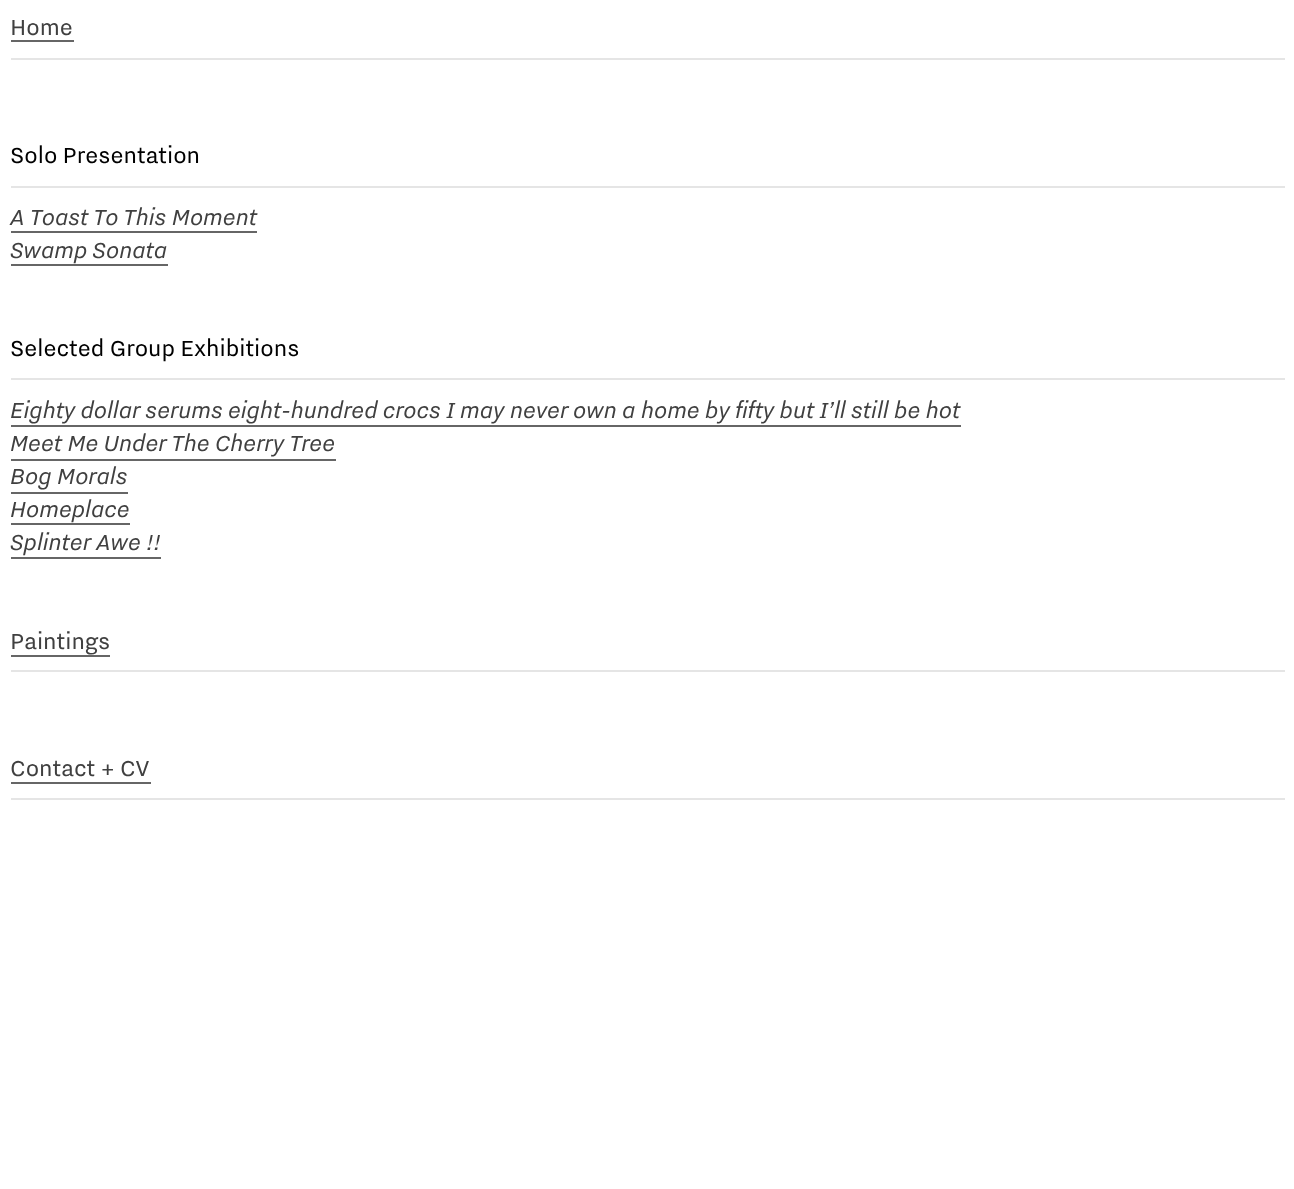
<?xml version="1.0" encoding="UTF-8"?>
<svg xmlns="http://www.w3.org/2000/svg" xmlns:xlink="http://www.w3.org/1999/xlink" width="1294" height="1189">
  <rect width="100%" height="100%" fill="#ffffff" />
  <rect x="11" y="40" width="63" height="2" fill="#666666" />
  <rect x="11" y="58" width="1274" height="2" fill="#e5e5e5" />
  <rect x="11" y="186" width="1274" height="2" fill="#e5e5e5" />
  <rect x="11" y="231" width="246" height="2" fill="#666666" />
  <rect x="11" y="264" width="157" height="2" fill="#666666" />
  <rect x="11" y="378" width="1274" height="2" fill="#e5e5e5" />
  <rect x="11" y="425" width="950" height="2" fill="#666666" />
  <rect x="11" y="459" width="325" height="2" fill="#666666" />
  <rect x="11" y="492" width="117" height="2" fill="#666666" />
  <rect x="11" y="523" width="119" height="2" fill="#666666" />
  <rect x="11" y="557" width="150" height="2" fill="#666666" />
  <rect x="11" y="655" width="99" height="2" fill="#666666" />
  <rect x="11" y="670" width="1274" height="2" fill="#e5e5e5" />
  <rect x="11" y="782" width="140" height="2" fill="#666666" />
  <rect x="11" y="798" width="1274" height="2" fill="#e5e5e5" />
  <text x="10" y="35" style="font-family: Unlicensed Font; font-size: 27.4px; fill: #404040">Home</text>
  <text x="10" y="163" style="font-family: Unlicensed Font; font-size: 27.4px; fill: #000000">Solo Presentation</text>
  <text x="10" y="225" style="font-family: Unlicensed Font; font-size: 27.4px; font-style: italic; fill: #404040">A Toast To This Moment</text>
  <text x="10" y="258" style="font-family: Unlicensed Font; font-size: 27.4px; font-style: italic; fill: #404040">Swamp Sonata</text>
  <text x="10" y="356" style="font-family: Unlicensed Font; font-size: 27.4px; fill: #000000">Selected Group Exhibitions</text>
  <text x="10" y="418" style="font-family: Unlicensed Font; font-size: 27.4px; font-style: italic; fill: #404040">Eighty dollar serums eight-hundred crocs I may never own a home by fifty but I’ll still be hot</text>
  <text x="10" y="451" style="font-family: Unlicensed Font; font-size: 27.4px; font-style: italic; fill: #404040">Meet Me Under The Cherry Tree</text>
  <text x="10" y="484" style="font-family: Unlicensed Font; font-size: 27.4px; font-style: italic; fill: #404040">Bog Morals</text>
  <text x="10" y="517" style="font-family: Unlicensed Font; font-size: 27.4px; font-style: italic; fill: #404040">Homeplace</text>
  <text x="10" y="550" style="font-family: Unlicensed Font; font-size: 27.4px; font-style: italic; fill: #404040">Splinter Awe !!</text>
  <text x="10" y="649" style="font-family: Unlicensed Font; font-size: 27.4px; fill: #404040">Paintings</text>
  <text x="10" y="776" style="font-family: Unlicensed Font; font-size: 27.4px; fill: #404040">Contact + CV</text>
</svg>
